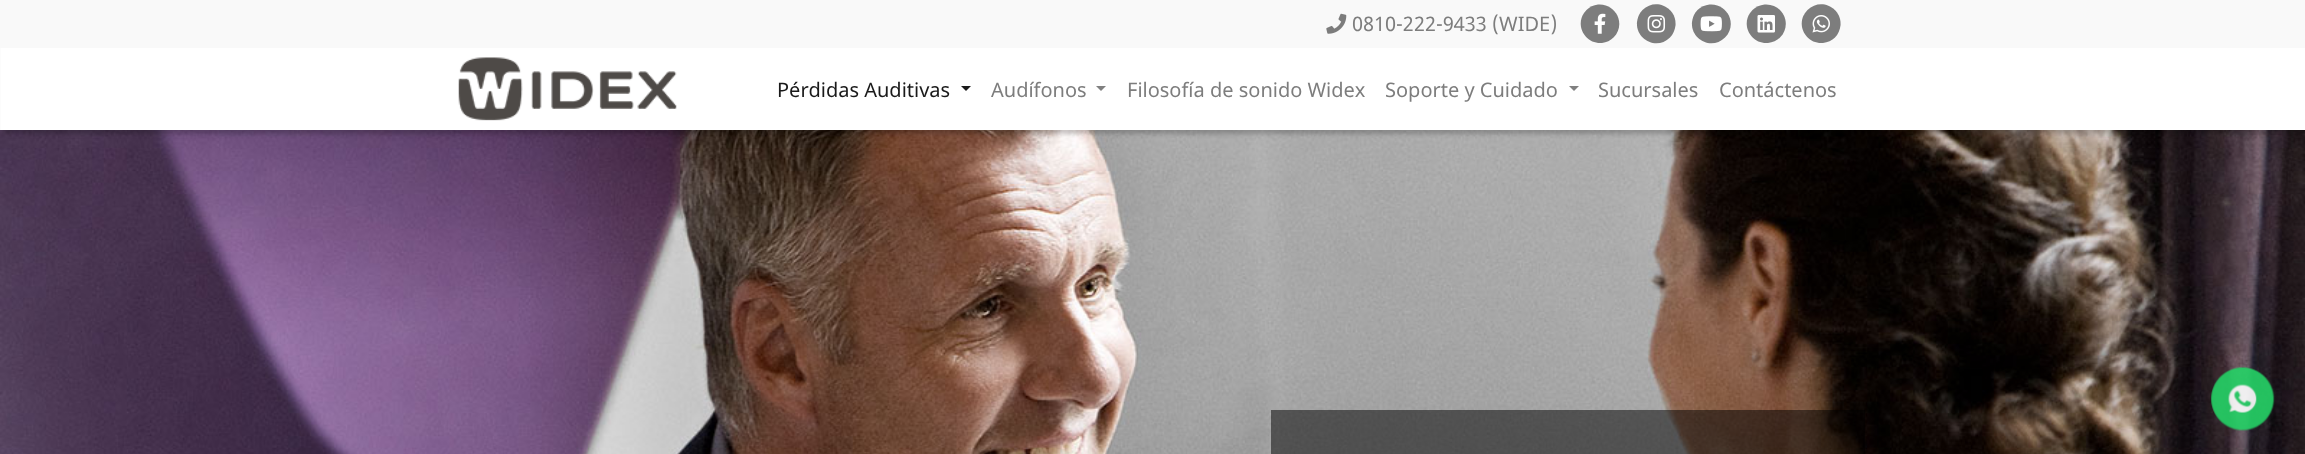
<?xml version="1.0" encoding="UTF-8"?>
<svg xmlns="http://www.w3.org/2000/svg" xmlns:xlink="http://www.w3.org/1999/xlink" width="2305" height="454">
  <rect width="100%" height="100%" fill="#ffffff" />
  <image x="0" y="130" width="2305" height="324" xlink:href="image8.png" />
  <rect x="4" y="4" width="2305" height="130" fill="#000000" fill-opacity="0.2" filter="blur(2px)" />
  <rect width="2305" height="48" fill="#f9f9f9" />
  <image x="1326" y="13" width="21" height="21" xlink:href="image1.png" />
  <path d="M 1586.5 10 c 3 -3 7 -5 11.5 -5.5 c 18 -1.5 28.5 20 15.5 33 c -3 3 -7 5 -11.5 5.5 c -18 1.5 -28.5 -20 -15.5 -33 z" fill="#7d7d7d" />
  <image x="1594" y="13" width="12" height="21" xlink:href="image2.png" />
  <path d="M 1642.5 10 c 13 -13 34.5 -2.5 33 15.5 c -0.5 4.5 -2.5 9 -5.5 12 c -13 13 -34.5 2.5 -33 -15.5 c 0.5 -4.5 2.5 -9 5.5 -12 z" fill="#7d7d7d" />
  <image x="1647" y="15" width="19" height="18" xlink:href="image3.png" />
  <path d="M 1697.5 10 c 3 -3 7.5 -5 12 -5.5 c 18 -1.5 28.5 20 15.5 33 c -13 13 -34.5 2.5 -33 -15.5 c 0.5 -4.5 2.5 -9 5.5 -12 z" fill="#7d7d7d" />
  <image x="1700" y="16" width="22" height="16" xlink:href="image4.png" />
  <path d="M 1752.5 10 c 3 -3 7.5 -5 12 -5.5 c 18 -1.5 28.5 20 15.5 33 c -3 3 -7.5 5 -12 5.5 c -18 1.5 -28.5 -20 -15.5 -33 z" fill="#7d7d7d" />
  <image x="1757" y="15" width="18" height="18" xlink:href="image5.png" />
  <path d="M 1807.5 10 c 13 -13 34.5 -2.5 33 15.5 c -0.5 4.5 -2.5 9 -5.5 12 c -3 3 -7.5 5 -12 5.5 c -18 1.5 -28.5 -20 -15.5 -33 z" fill="#7d7d7d" />
  <image x="1812" y="15" width="18" height="18" xlink:href="image6.png" />
  <rect x="1" y="48" width="2304" height="82" fill="#ffffff" />
  <image x="458" y="57" width="219" height="64" xlink:href="image7.png" />
  <path d="M 961 86 h 10 l -5 5 z" fill="#1a1a1a" />
  <path d="M 1096 86 h 10 l -5 5 z" fill="#808080" />
  <path d="M 1569 86 h 10 l -5 5 z" fill="#808080" />
  <rect x="1271" y="410" width="594" height="44" fill="#000000" fill-opacity="0.5" />
  <image x="2211" y="367" width="64" height="64" xlink:href="image9.png" />
  <text x="1352" y="31" style="font-family: Noto Sans; font-size: 20px; fill: #7d7d7d">0810-222-9433 (WIDE)</text>
  <text x="777" y="97" style="font-family: Noto Sans; font-size: 20px; fill: #1a1a1a">Pérdidas Auditivas</text>
  <text x="991" y="97" style="font-family: Noto Sans; font-size: 20px; fill: #7d7d7d">Audífonos</text>
  <text x="1127" y="97" style="font-family: Noto Sans; font-size: 20px; fill: #7d7d7d">Filosofía de sonido Widex</text>
  <text x="1385" y="97" style="font-family: Noto Sans; font-size: 20px; fill: #7d7d7d">Soporte y Cuidado</text>
  <text x="1598" y="97" style="font-family: Noto Sans; font-size: 20px; fill: #7d7d7d">Sucursales</text>
  <text x="1719" y="97" style="font-family: Noto Sans; font-size: 20px; fill: #7d7d7d">Contáctenos</text>
</svg>
